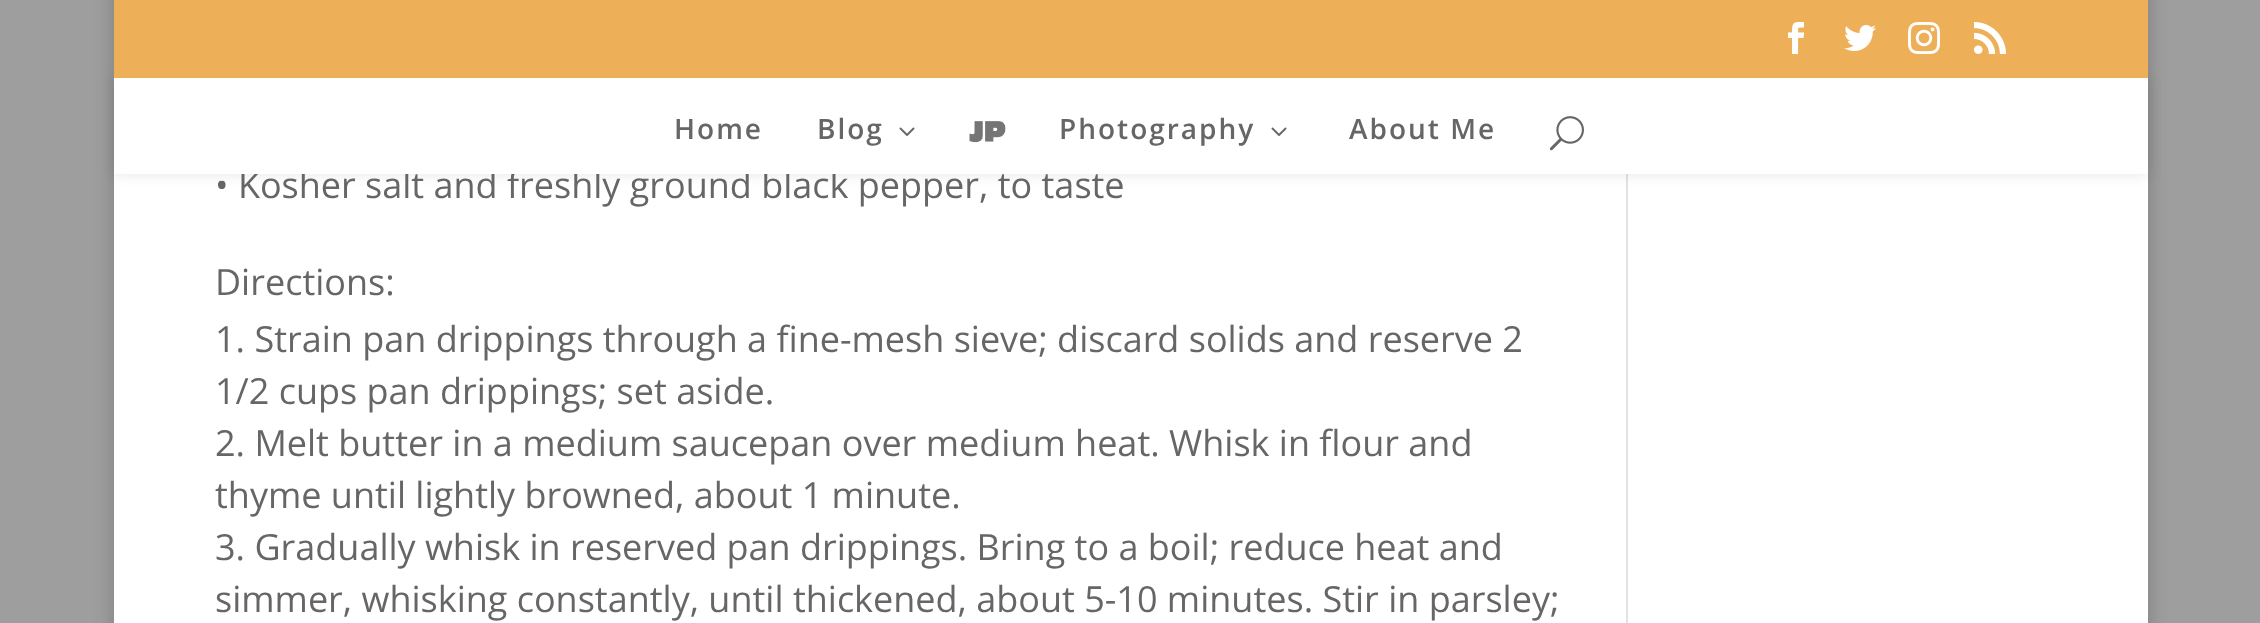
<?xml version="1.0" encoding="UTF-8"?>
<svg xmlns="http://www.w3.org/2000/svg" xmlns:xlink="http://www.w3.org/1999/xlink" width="2260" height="623">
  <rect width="100%" height="100%" fill="#9e9e9e" />
  <rect x="114" y="-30" width="2034" height="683" fill="#000000" fill-opacity="0.2" filter="blur(10px)" />
  <rect x="114" y="174" width="2034" height="449" fill="#ffffff" />
  <rect x="1626" y="174" width="2" height="449" fill="#e2e2e2" />
  <rect x="114" y="78" width="2034" height="96" fill="#000000" fill-opacity="0.1" filter="blur(7px)" />
  <rect x="114" width="2034" height="78" fill="#edb059" />
  <image x="1788" y="22" width="17" height="32" xlink:href="image1.png" />
  <image x="1844" y="25" width="32" height="26" xlink:href="image2.png" />
  <image x="1908" y="22" width="32" height="32" xlink:href="image3.png" />
  <image x="1974" y="22" width="32" height="32" xlink:href="image4.png" />
  <text x="215" y="198" style="font-family: Open Sans; font-size: 36px; fill: #666666">• Kosher salt and freshly ground black pepper, to taste</text>
  <rect x="114" y="78" width="2034" height="96" fill="#ffffff" />
  <text x="1349" y="139" style="font-family: Open Sans; font-size: 28px; font-weight: 600; letter-spacing: 2px; fill: #666666">About Me</text>
  <image x="1271" y="127" width="16" height="9" xlink:href="image5.png" />
  <text x="1059" y="139" style="font-family: Open Sans; font-size: 28px; font-weight: 600; letter-spacing: 2px; fill: #666666">Photography</text>
  <image x="899" y="127" width="16" height="9" xlink:href="image5.png" />
  <text x="817" y="139" style="font-family: Open Sans; font-size: 28px; font-weight: 600; letter-spacing: 2px; fill: #666666">Blog</text>
  <text x="674" y="139" style="font-family: Open Sans; font-size: 28px; font-weight: 600; letter-spacing: 2px; fill: #666666">Home</text>
  <image x="1549" y="116" width="35" height="35" xlink:href="image7.png" />
  <image x="969" y="121" width="37" height="22" xlink:href="image6.png" />
  <text x="215" y="295" style="font-family: Open Sans; font-size: 36px; fill: #666666">Directions:</text>
  <text x="215" y="352" style="font-family: Open Sans; font-size: 36px; fill: #666666">1. Strain pan drippings through a fine-mesh sieve; discard solids and reserve 2</text>
  <text x="215" y="404" style="font-family: Open Sans; font-size: 36px; fill: #666666">1/2 cups pan drippings; set aside.</text>
  <text x="215" y="456" style="font-family: Open Sans; font-size: 36px; fill: #666666">2. Melt butter in a medium saucepan over medium heat. Whisk in flour and</text>
  <text x="215" y="508" style="font-family: Open Sans; font-size: 36px; fill: #666666">thyme until lightly browned, about 1 minute.</text>
  <text x="215" y="560" style="font-family: Open Sans; font-size: 36px; fill: #666666">3. Gradually whisk in reserved pan drippings. Bring to a boil; reduce heat and</text>
  <text x="215" y="612" style="font-family: Open Sans; font-size: 36px; fill: #666666">simmer, whisking constantly, until thickened, about 5-10 minutes. Stir in parsley;</text>
</svg>
